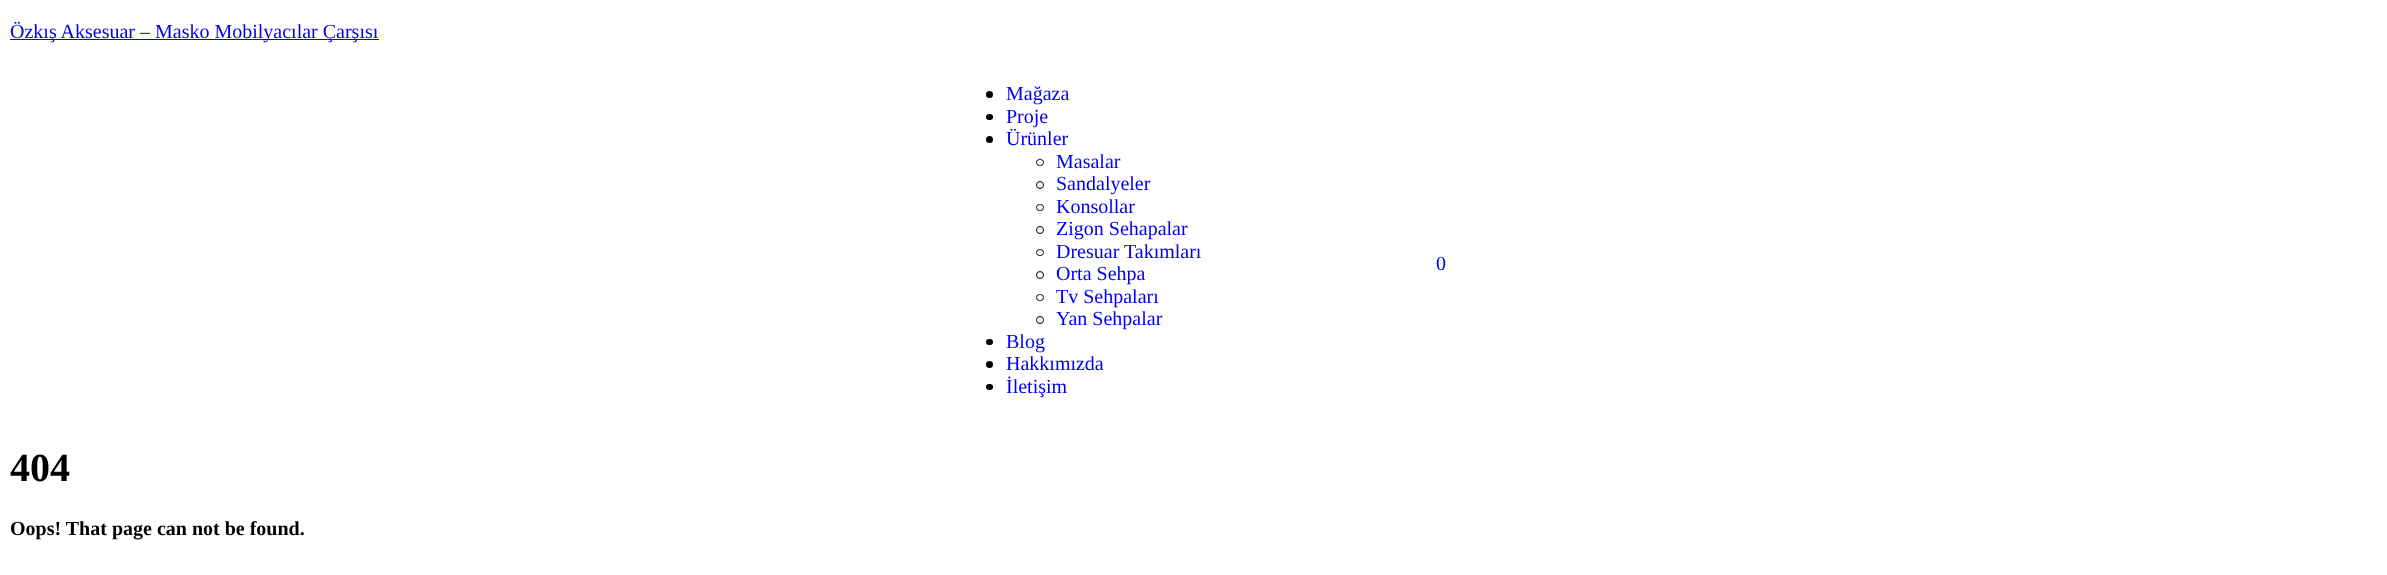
<?xml version="1.0" encoding="UTF-8"?>
<svg xmlns="http://www.w3.org/2000/svg" xmlns:xlink="http://www.w3.org/1999/xlink" width="2387" height="575">
  <rect width="100%" height="100%" fill="#ffffff" />
  <rect x="10" y="39" width="369" height="1" fill="#0000ee" />
  <circle cx="989.5" cy="94.5" r="3.5" fill="#000000" />
  <rect x="986" y="114" width="7" height="6" rx="3" fill="#000000" />
  <circle cx="989.5" cy="139.5" r="3.5" fill="#000000" />
  <rect x="1036.5" y="159.5" width="7" height="6" rx="3" fill="none" stroke="#000000" />
  <circle cx="1040" cy="185" r="3.5" fill="none" stroke="#000000" />
  <rect x="1036.5" y="204.5" width="7" height="6" rx="3" fill="none" stroke="#000000" />
  <circle cx="1040" cy="230" r="3.5" fill="none" stroke="#000000" />
  <rect x="1036.5" y="249.5" width="7" height="6" rx="3" fill="none" stroke="#000000" />
  <circle cx="1040" cy="275" r="3.5" fill="none" stroke="#000000" />
  <rect x="1036.5" y="294.5" width="7" height="6" rx="3" fill="none" stroke="#000000" />
  <circle cx="1040" cy="320" r="3.5" fill="none" stroke="#000000" />
  <rect x="986" y="339" width="7" height="6" rx="3" fill="#000000" />
  <circle cx="989.5" cy="364.5" r="3.5" fill="#000000" />
  <rect x="986" y="384" width="7" height="6" rx="3" fill="#000000" />
  <text x="10" y="38" style="font-family: Liberation Serif; font-size: 20px; fill: #0000ee">Özkış Aksesuar – Masko Mobilyacılar Çarşısı</text>
  <text x="1006" y="100" style="font-family: Liberation Serif; font-size: 20px; fill: #0000ee">Mağaza</text>
  <text x="1006" y="123" style="font-family: Liberation Serif; font-size: 20px; fill: #0000ee">Proje</text>
  <text x="1006" y="145" style="font-family: Liberation Serif; font-size: 20px; fill: #0000ee">Ürünler</text>
  <text x="1056" y="168" style="font-family: Liberation Serif; font-size: 20px; fill: #0000ee">Masalar</text>
  <text x="1056" y="190" style="font-family: Liberation Serif; font-size: 20px; fill: #0000ee">Sandalyeler</text>
  <text x="1056" y="213" style="font-family: Liberation Serif; font-size: 20px; fill: #0000ee">Konsollar</text>
  <text x="1056" y="235" style="font-family: Liberation Serif; font-size: 20px; fill: #0000ee">Zigon Sehapalar</text>
  <text x="1056" y="258" style="font-family: Liberation Serif; font-size: 20px; fill: #0000ee">Dresuar Takımları</text>
  <text x="1056" y="280" style="font-family: Liberation Serif; font-size: 20px; fill: #0000ee">Orta Sehpa</text>
  <text x="1056" y="303" style="font-family: Liberation Serif; font-size: 20px; fill: #0000ee">Tv Sehpaları</text>
  <text x="1056" y="325" style="font-family: Liberation Serif; font-size: 20px; fill: #0000ee">Yan Sehpalar</text>
  <text x="1006" y="348" style="font-family: Liberation Serif; font-size: 20px; fill: #0000ee">Blog</text>
  <text x="1006" y="370" style="font-family: Liberation Serif; font-size: 20px; fill: #0000ee">Hakkımızda</text>
  <text x="1006" y="393" style="font-family: Liberation Serif; font-size: 20px; fill: #0000ee">İletişim</text>
  <text x="1436" y="270" style="font-family: Liberation Serif; font-size: 20px; fill: #0000ee">0</text>
  <text x="10" y="481" style="font-family: Liberation Serif; font-size: 40px; font-weight: bold; fill: #000000">404</text>
  <text x="10" y="535" style="font-family: Liberation Serif; font-size: 20px; font-weight: bold; fill: #000000">Oops! That page can not be found.</text>
</svg>
